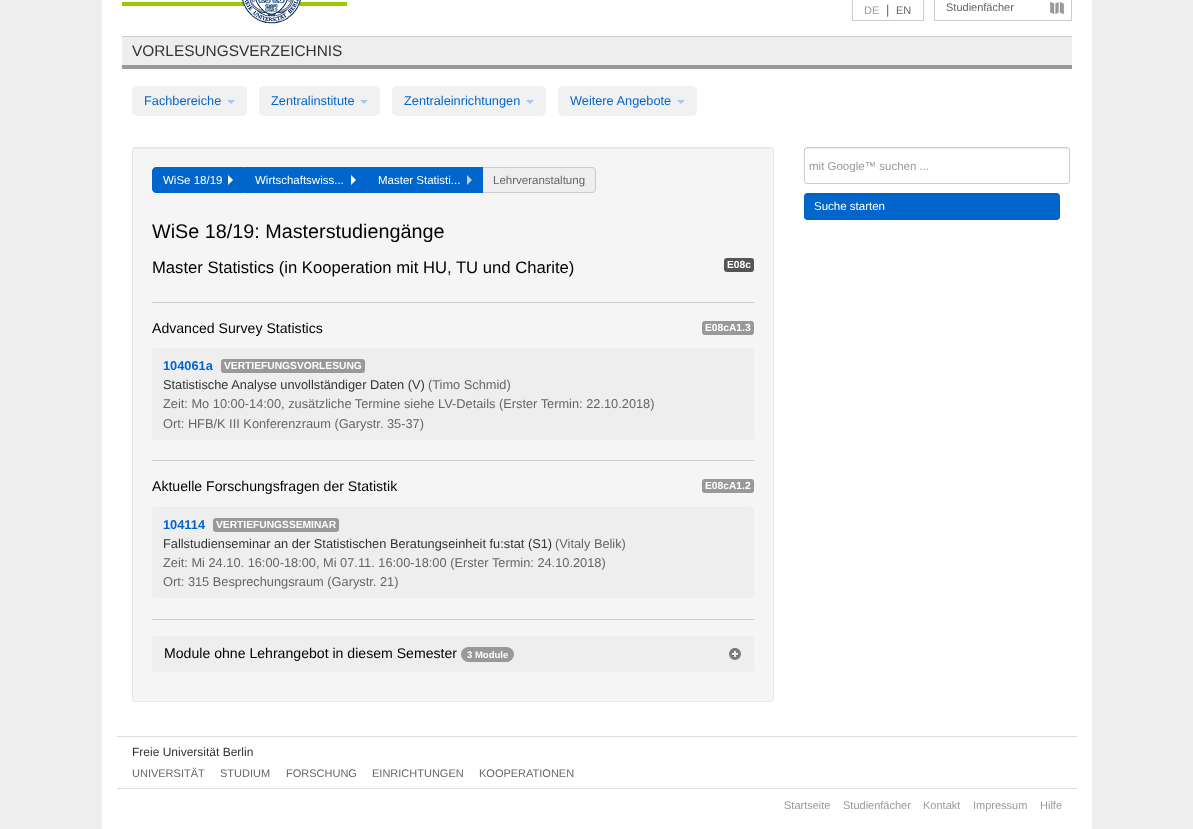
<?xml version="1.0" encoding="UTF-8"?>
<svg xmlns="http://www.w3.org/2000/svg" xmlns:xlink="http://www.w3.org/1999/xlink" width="1193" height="829">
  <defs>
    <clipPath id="clip1"><rect x="809" y="160" width="256" height="12" /></clipPath>
  </defs>
  <rect width="100%" height="100%" fill="#eeeeee" />
  <rect x="102" width="990" height="829" fill="#ffffff" />
  <image x="122" y="0" width="225" height="24" xlink:href="image1.png" />
  <rect x="852.5" y="-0.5" width="71" height="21" fill="none" stroke="#cccccc" />
  <rect x="934.5" y="-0.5" width="137" height="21" fill="none" stroke="#cccccc" />
  <image x="1050" y="1" width="14" height="14" xlink:href="image2.png" />
  <rect x="122" y="37" width="950" height="28" fill="#eeeeee" />
  <rect x="122" y="36" width="950" height="1" fill="#cccccc" />
  <rect x="122" y="65" width="950" height="4" fill="#999999" />
  <rect x="132" y="86" width="115" height="30" rx="5" fill="#f1f1f1" />
  <path d="M 227 100 h 8 l -4 4 z" fill="#a9c7e6" />
  <rect x="259" y="86" width="121" height="30" rx="5" fill="#f1f1f1" />
  <path d="M 360 100 h 8 l -4 4 z" fill="#a9c7e6" />
  <rect x="392" y="86" width="154" height="30" rx="5" fill="#f1f1f1" />
  <path d="M 526 100 h 8 l -4 4 z" fill="#a9c7e6" />
  <rect x="558" y="86" width="139" height="30" rx="5" fill="#f1f1f1" />
  <path d="M 677 100 h 8 l -4 4 z" fill="#a9c7e6" />
  <rect x="132" y="147" width="642" height="555" rx="4" fill="#f5f5f5" />
  <path d="M 136 149 h 634 c 2 0 3 1 3 3 v -1 c 0 -2 -1 -3 -3 -3 h -634 c -2 0 -3 1 -3 3 v 1 c 0 -2 1 -3 3 -3 z" fill="#e9e9e9" />
  <rect x="132.5" y="147.5" width="641" height="554" fill="none" stroke="#000000" stroke-opacity="0.05" />
  <path d="M 156 167.5 h 87.5 v 25 h -87.5 c -2 0 -3.5 -1.5 -3.5 -3.5 v -18 c 0 -2 1.5 -3.5 3.5 -3.5 z" fill="#0066cc" stroke="#0066cc" />
  <path d="M 228 185 v -10 l 5 5 z" fill="#ffffff" />
  <rect x="244" y="167" width="239" height="26" fill="#0066cc" />
  <path d="M 351 185 v -10 l 5 5 z" fill="#ffffff" />
  <path d="M 467 185 v -10 l 5 5 z" fill="#cccccc" />
  <path d="M 483 167 h 109 c 2 0 4 2 4 4 v 18 c 0 2 -2 4 -4 4 h -109 z" fill="#eeeeee" />
  <path d="M 483 167 h 109 c 2 0 4 2 4 4 v 18 c 0 2 -2 4 -4 4 h -109 z m 0 1 h 109 c 2 0 3 1 3 3 v 18 c 0 2 -1 3 -3 3 h -109 z" fill="#cccccc" fill-rule="evenodd" />
  <rect x="724" y="258" width="30" height="14" rx="3" fill="#555555" />
  <rect x="152" y="302" width="602" height="1" fill="#cccccc" />
  <rect x="702" y="321" width="52" height="14" rx="3" fill="#999999" />
  <rect x="152" y="348" width="602" height="92" rx="4" fill="#eeeeee" />
  <rect x="221" y="359" width="144" height="14" rx="3" fill="#999999" />
  <rect x="152" y="460" width="602" height="1" fill="#cccccc" />
  <rect x="702" y="479" width="52" height="14" rx="3" fill="#999999" />
  <rect x="152" y="507" width="602" height="91" rx="4" fill="#eeeeee" />
  <rect x="213" y="518" width="126" height="14" rx="3" fill="#999999" />
  <rect x="152" y="619" width="602" height="1" fill="#cccccc" />
  <rect x="152" y="636" width="602" height="36" rx="4" fill="#eeeeee" />
  <rect x="461" y="647" width="53" height="15" rx="7.5" fill="#999999" />
  <image x="729" y="648" width="12" height="12" xlink:href="image3.png" />
  <path d="M 807 149 h 260 c 1 0 2 1 2 2 v -1 c 0 -1 -1 -2 -2 -2 h -260 c -1 0 -2 1 -2 2 v 1 c 0 -1 1 -2 2 -2 z" fill="#ececec" />
  <rect x="804.5" y="147.5" width="265" height="36" rx="2.5" fill="none" stroke="#cccccc" />
  <rect x="804" y="193" width="256" height="27" rx="4" fill="#0066cc" />
  <path d="M 808 195 h 249 l 2 1 v 2 c 0 -2 -1 -4 -3 -4 h -248 c -2 0 -3 2 -3 4 c 0 -2 1 -3 3 -3 z" fill="#005ebd" />
  <rect x="804.5" y="193.5" width="255" height="26" rx="3.5" fill="none" stroke="#0066cc" />
  <rect x="117" y="736" width="960" height="1" fill="#dddddd" />
  <rect x="117" y="788" width="960" height="1" fill="#dddddd" />
  <text x="864" y="14" style="font-family: Liberation Sans; font-size: 11px; fill: #999999">DE</text>
  <text x="886" y="14" style="font-family: Liberation Sans; font-size: 12.75px; fill: #666666">|</text>
  <text x="896" y="14" style="font-family: Liberation Sans; font-size: 11px; fill: #666666">EN</text>
  <text x="946" y="11" style="font-family: Liberation Sans; font-size: 11px; fill: #666666">Studienfächer</text>
  <text x="132" y="56" style="font-family: Liberation Sans; font-size: 15.4px; fill: #333333">VORLESUNGSVERZEICHNIS</text>
  <text x="144" y="105" style="font-family: Liberation Sans; font-size: 12.75px; fill: #0066cc">Fachbereiche</text>
  <text x="271" y="105" style="font-family: Liberation Sans; font-size: 12.75px; fill: #0066cc">Zentralinstitute</text>
  <text x="404" y="105" style="font-family: Liberation Sans; font-size: 12.75px; fill: #0066cc">Zentraleinrichtungen</text>
  <text x="570" y="105" style="font-family: Liberation Sans; font-size: 12.75px; fill: #0066cc">Weitere Angebote</text>
  <text x="163" y="184" style="font-family: Liberation Sans; font-size: 11.5px; fill: #ffffff">WiSe 18/19</text>
  <text x="255" y="184" style="font-family: Liberation Sans; font-size: 11.5px; fill: #ffffff">Wirtschaftswiss...</text>
  <text x="378" y="184" style="font-family: Liberation Sans; font-size: 11.5px; fill: #ffffff">Master Statisti...</text>
  <text x="493" y="184" style="font-family: Liberation Sans; font-size: 11.5px; fill: #666666">Lehrveranstaltung</text>
  <text x="152" y="238" style="font-family: Liberation Sans; font-size: 19.8px; fill: #000000">WiSe 18/19: Masterstudiengänge</text>
  <text x="152" y="273" style="font-family: Liberation Sans; font-size: 16.65px; fill: #000000">Master Statistics (in Kooperation mit HU, TU und Charite)</text>
  <text x="727" y="268" style="font-family: Liberation Sans; font-size: 10.25px; font-weight: bold; fill: #ffffff">E08c</text>
  <text x="152" y="333" style="font-family: Liberation Sans; font-size: 14.1px; fill: #000000">Advanced Survey Statistics</text>
  <text x="705" y="331" style="font-family: Liberation Sans; font-size: 10.25px; font-weight: bold; fill: #ffffff">E08cA1.3</text>
  <text x="163" y="370" style="font-family: Liberation Sans; font-size: 12.8px; font-weight: bold; fill: #0066cc">104061a</text>
  <text x="224" y="369" style="font-family: Liberation Sans; font-size: 10.25px; font-weight: bold; fill: #ffffff">VERTIEFUNGSVORLESUNG</text>
  <text x="163" y="389" style="font-family: Liberation Sans; font-size: 12.8px; fill: #333333">Statistische Analyse unvollständiger Daten (V)</text>
  <text x="428" y="389" style="font-family: Liberation Sans; font-size: 12.8px; fill: #666666">(Timo Schmid)</text>
  <text x="163" y="408" style="font-family: Liberation Sans; font-size: 12.8px; fill: #666666">Zeit: Mo 10:00-14:00, zusätzliche Termine siehe LV-Details (Erster Termin: 22.10.2018)</text>
  <text x="163" y="428" style="font-family: Liberation Sans; font-size: 12.8px; fill: #666666">Ort: HFB/K III Konferenzraum (Garystr. 35-37)</text>
  <text x="152" y="491" style="font-family: Liberation Sans; font-size: 14.1px; fill: #000000">Aktuelle Forschungsfragen der Statistik</text>
  <text x="705" y="489" style="font-family: Liberation Sans; font-size: 10.25px; font-weight: bold; fill: #ffffff">E08cA1.2</text>
  <text x="163" y="529" style="font-family: Liberation Sans; font-size: 12.8px; font-weight: bold; fill: #0066cc">104114</text>
  <text x="216" y="528" style="font-family: Liberation Sans; font-size: 10.25px; font-weight: bold; fill: #ffffff">VERTIEFUNGSSEMINAR</text>
  <text x="163" y="548" style="font-family: Liberation Sans; font-size: 12.8px; fill: #333333">Fallstudienseminar an der Statistischen Beratungseinheit fu:stat (S1)</text>
  <text x="555" y="548" style="font-family: Liberation Sans; font-size: 12.8px; fill: #666666">(Vitaly Belik)</text>
  <text x="163" y="567" style="font-family: Liberation Sans; font-size: 12.8px; fill: #666666">Zeit: Mi 24.10. 16:00-18:00, Mi 07.11. 16:00-18:00 (Erster Termin: 24.10.2018)</text>
  <text x="163" y="586" style="font-family: Liberation Sans; font-size: 12.8px; fill: #666666">Ort: 315 Besprechungsraum (Garystr. 21)</text>
  <text x="164" y="658" style="font-family: Liberation Sans; font-size: 14.1px; fill: #000000">Module ohne Lehrangebot in diesem Semester</text>
  <text x="467" y="658" style="font-family: Liberation Sans; font-size: 9.5px; font-weight: bold; fill: #ffffff">3 Module</text>
  <g clip-path="url(#clip1)">
    <text x="809" y="170" style="font-family: Liberation Sans; font-size: 11.5px; fill: #999999">mit Google™ suchen ...</text>
  </g>
  <text x="814" y="210" style="font-family: Liberation Sans; font-size: 11.5px; fill: #ffffff">Suche starten</text>
  <text x="132" y="756" style="font-family: Liberation Sans; font-size: 12px; fill: #333333">Freie Universität Berlin</text>
  <text x="132" y="777" style="font-family: Liberation Sans; font-size: 11px; fill: #666666">UNIVERSITÄT</text>
  <text x="220" y="777" style="font-family: Liberation Sans; font-size: 11px; fill: #666666">STUDIUM</text>
  <text x="286" y="777" style="font-family: Liberation Sans; font-size: 11px; fill: #666666">FORSCHUNG</text>
  <text x="372" y="777" style="font-family: Liberation Sans; font-size: 11px; fill: #666666">EINRICHTUNGEN</text>
  <text x="479" y="777" style="font-family: Liberation Sans; font-size: 11px; fill: #666666">KOOPERATIONEN</text>
  <text x="784" y="809" style="font-family: Liberation Sans; font-size: 11px; fill: #999999">Startseite</text>
  <text x="843" y="809" style="font-family: Liberation Sans; font-size: 11px; fill: #999999">Studienfächer</text>
  <text x="923" y="809" style="font-family: Liberation Sans; font-size: 11px; fill: #999999">Kontakt</text>
  <text x="973" y="809" style="font-family: Liberation Sans; font-size: 11px; fill: #999999">Impressum</text>
  <text x="1040" y="809" style="font-family: Liberation Sans; font-size: 11px; fill: #999999">Hilfe</text>
</svg>
